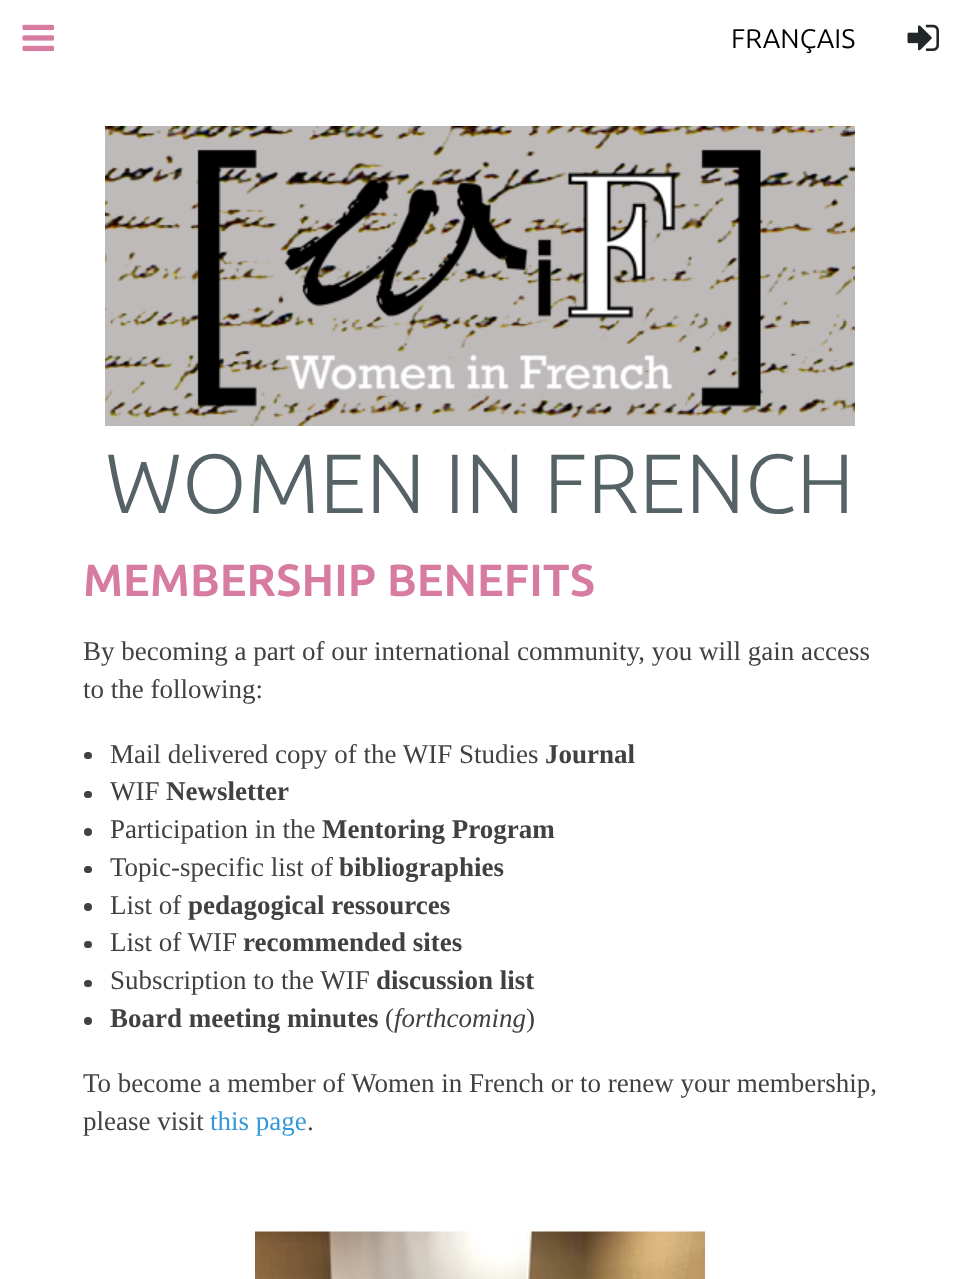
<?xml version="1.0" encoding="UTF-8"?>
<svg xmlns="http://www.w3.org/2000/svg" xmlns:xlink="http://www.w3.org/1999/xlink" width="960" height="1279">
  <rect width="100%" height="100%" fill="#ffffff" />
  <image x="22" y="24" width="32" height="28" xlink:href="image1.png" />
  <image x="907" y="24" width="32" height="27" xlink:href="image2.png" />
  <image x="105" y="126" width="750" height="300" xlink:href="image3.png" />
  <rect x="84" y="752" width="8" height="7" rx="3.5" fill="#414141" />
  <rect x="84" y="791" width="8" height="7" rx="3.5" fill="#414141" />
  <circle cx="88" cy="832" r="4" fill="#414141" />
  <rect x="84" y="866" width="8" height="7" rx="3.5" fill="#414141" />
  <circle cx="88" cy="907" r="4" fill="#414141" />
  <rect x="84" y="941" width="8" height="7" rx="3.5" fill="#414141" />
  <rect x="84" y="980" width="8" height="7" rx="3.5" fill="#414141" />
  <circle cx="88" cy="1021" r="4" fill="#414141" />
  <image x="255" y="1231" width="450" height="48" xlink:href="image4.png" />
  <text x="731" y="48" style="font-family: Ubuntu; font-size: 27px; fill: #000000">FRANÇAIS</text>
  <text x="105" y="513" style="font-family: Ubuntu; font-size: 84px; font-weight: 300; fill: #556366">WOMEN IN FRENCH</text>
  <text x="83" y="596" style="font-family: Ubuntu; font-size: 45px; font-weight: bold; fill: #d77ba0">MEMBERSHIP BENEFITS</text>
  <text x="83" y="660" style="font-family: Liberation Serif; font-size: 27px; fill: #414141">By becoming a part of our international community, you will gain access</text>
  <text x="83" y="698" style="font-family: Liberation Serif; font-size: 27px; fill: #414141">to the following:</text>
  <text x="110" y="763" style="font-family: Liberation Serif; font-size: 27px; fill: #414141">Mail delivered copy of the WIF Studies</text>
  <text x="545" y="763" style="font-family: Liberation Serif; font-size: 27px; font-weight: bold; fill: #414141">Journal</text>
  <text x="110" y="800" style="font-family: Liberation Serif; font-size: 27px; fill: #414141">WIF</text>
  <text x="166" y="800" style="font-family: Liberation Serif; font-size: 27px; font-weight: bold; fill: #414141">Newsletter</text>
  <text x="110" y="838" style="font-family: Liberation Serif; font-size: 27px; fill: #414141">Participation in the</text>
  <text x="322" y="838" style="font-family: Liberation Serif; font-size: 27px; font-weight: bold; fill: #414141">Mentoring Program</text>
  <text x="110" y="876" style="font-family: Liberation Serif; font-size: 27px; fill: #414141">Topic-specific list of</text>
  <text x="339" y="876" style="font-family: Liberation Serif; font-size: 27px; font-weight: bold; fill: #414141">bibliographies</text>
  <text x="110" y="914" style="font-family: Liberation Serif; font-size: 27px; fill: #414141">List of</text>
  <text x="188" y="914" style="font-family: Liberation Serif; font-size: 27px; font-weight: bold; fill: #414141">pedagogical ressources</text>
  <text x="110" y="951" style="font-family: Liberation Serif; font-size: 27px; fill: #414141">List of WIF</text>
  <text x="243" y="951" style="font-family: Liberation Serif; font-size: 27px; font-weight: bold; fill: #414141">recommended sites</text>
  <text x="110" y="989" style="font-family: Liberation Serif; font-size: 27px; fill: #414141">Subscription to the WIF</text>
  <text x="376" y="989" style="font-family: Liberation Serif; font-size: 27px; font-weight: bold; fill: #414141">discussion list</text>
  <text x="110" y="1027" style="font-family: Liberation Serif; font-size: 27px; font-weight: bold; fill: #414141">Board meeting minutes</text>
  <text x="385" y="1027" style="font-family: Liberation Serif; font-size: 27px; fill: #414141">(</text>
  <text x="394" y="1027" style="font-family: Liberation Serif; font-size: 27px; font-style: italic; fill: #414141">forthcoming</text>
  <text x="526" y="1027" style="font-family: Liberation Serif; font-size: 27px; fill: #414141">)</text>
  <text x="83" y="1092" style="font-family: Liberation Serif; font-size: 27px; fill: #414141">To become a member of Women in French or to renew your membership,</text>
  <text x="83" y="1130" style="font-family: Liberation Serif; font-size: 27px; fill: #414141">please visit</text>
  <text x="210" y="1130" style="font-family: Liberation Serif; font-size: 27px; fill: #3498db">this page</text>
  <text x="307" y="1130" style="font-family: Liberation Serif; font-size: 27px; fill: #414141">.</text>
</svg>
